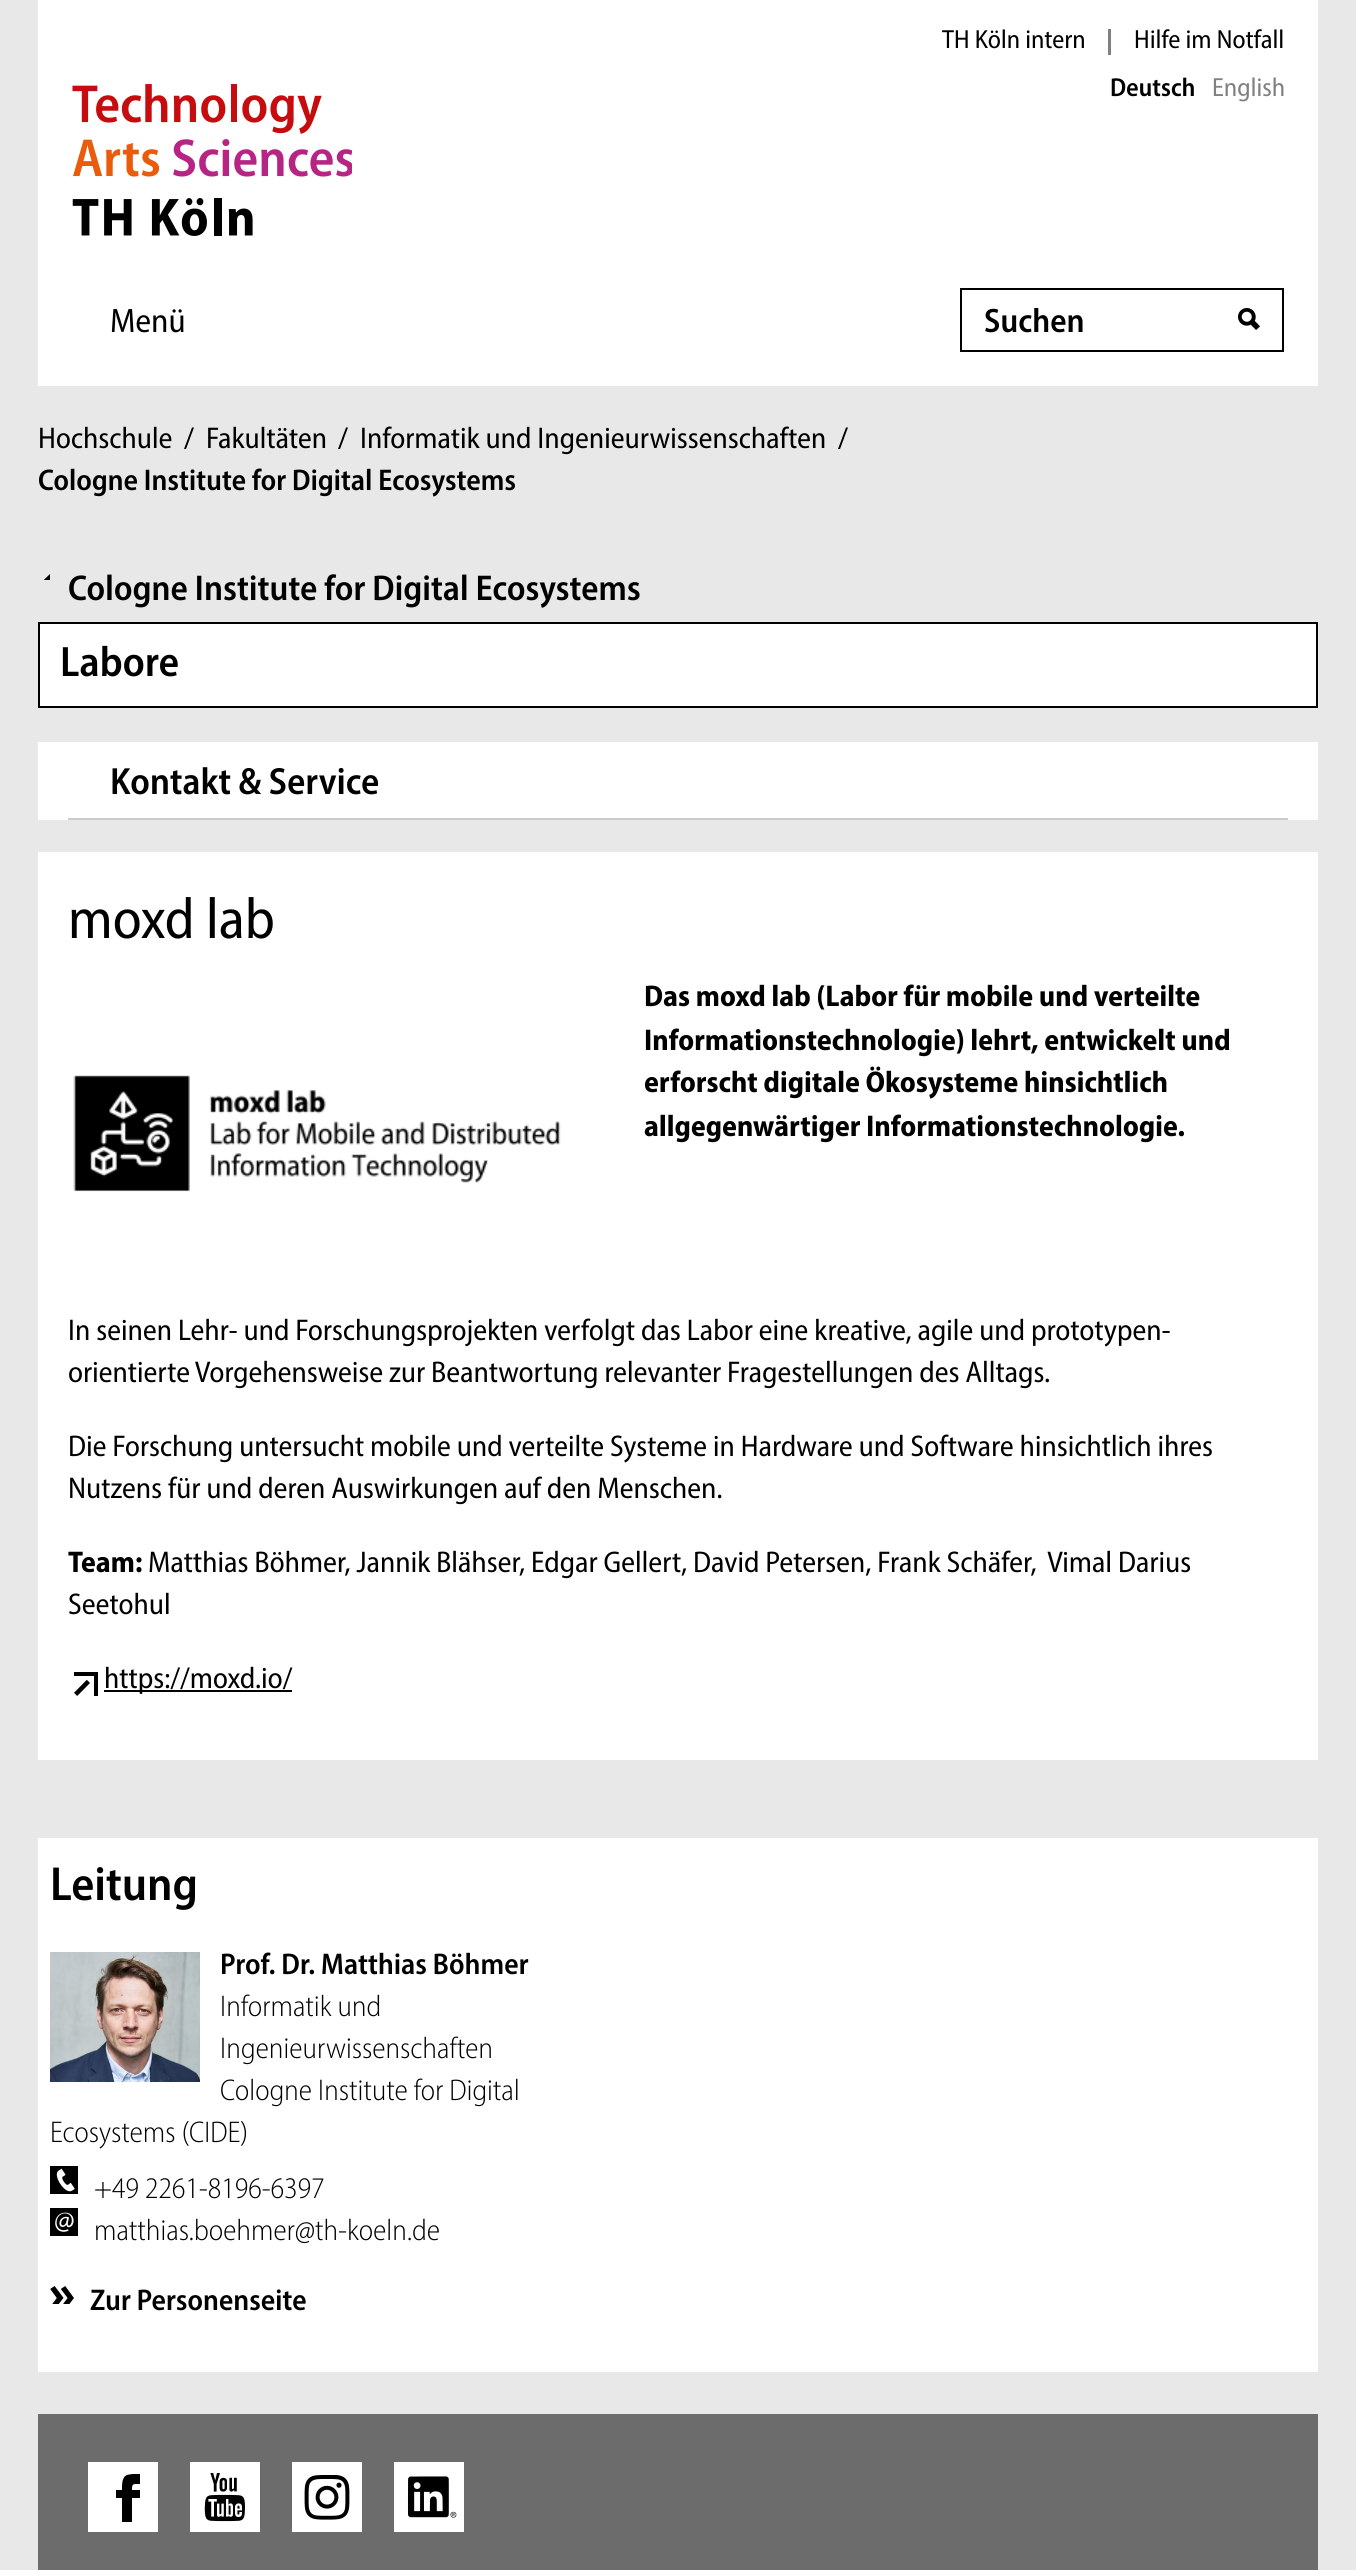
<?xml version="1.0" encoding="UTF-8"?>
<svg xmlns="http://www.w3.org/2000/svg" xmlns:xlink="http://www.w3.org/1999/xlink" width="1356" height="2570">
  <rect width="100%" height="100%" fill="#e8e8e8" />
  <rect x="38" width="1280" height="386" fill="#ffffff" />
  <image x="942" y="29" width="142" height="20" xlink:href="image1.png" />
  <rect x="1108" y="29" width="3" height="26" fill="#808080" />
  <image x="1135" y="29" width="148" height="20" xlink:href="image2.png" />
  <image x="1111" y="77" width="83" height="20" xlink:href="image3.png" />
  <image x="1213" y="77" width="71" height="25" xlink:href="image4.png" />
  <image x="72" y="84" width="280" height="152" xlink:href="image5.png" />
  <image x="111" y="309" width="73" height="24" xlink:href="image6.png" />
  <rect x="961" y="289" width="322" height="62" fill="none" stroke="#000000" stroke-width="2" />
  <image x="985" y="308" width="98" height="25" xlink:href="image7.png" />
  <image x="1238" y="308" width="22" height="22" xlink:href="image8.png" />
  <image x="40" y="426" width="132" height="23" xlink:href="image9.png" />
  <path d="M 184 449 l 8 -21.5 h 2 l -8 21.5 z" fill="#000000" />
  <image x="208" y="426" width="118" height="23" xlink:href="image10.png" />
  <path d="M 338 449 l 8 -21.5 h 2 l -8 21.5 z" fill="#000000" />
  <image x="362" y="426" width="463" height="29" xlink:href="image11.png" />
  <path d="M 838 449 l 8 -21.5 h 2 l -8 21.5 z" fill="#000000" />
  <image x="39" y="468" width="476" height="29" xlink:href="image12.png" />
  <image x="43" y="574" width="7" height="6" xlink:href="image13.png" />
  <image x="69" y="574" width="571" height="34" xlink:href="image14.png" />
  <rect x="39" y="623" width="1278" height="84" fill="#ffffff" stroke="#000000" stroke-width="2" />
  <image x="62" y="645" width="116" height="32" xlink:href="image15.png" />
  <rect x="38" y="742" width="1280" height="78" fill="#ffffff" />
  <rect x="68" y="818" width="1220" height="2" fill="#cccccc" />
  <image x="112" y="767" width="267" height="28" xlink:href="image16.png" />
  <rect x="38" y="852" width="1280" height="908" fill="#ffffff" />
  <image x="71" y="897" width="202" height="42" xlink:href="image17.png" />
  <image x="73" y="1075" width="488" height="117" xlink:href="image18.png" />
  <image x="645" y="984" width="555" height="26" xlink:href="image19.png" />
  <image x="645" y="1028" width="585" height="29" xlink:href="image20.png" />
  <image x="645" y="1066" width="522" height="33" xlink:href="image21.png" />
  <image x="644" y="1114" width="540" height="29" xlink:href="image22.png" />
  <image x="70" y="1318" width="1100" height="29" xlink:href="image23.png" />
  <image x="69" y="1360" width="980" height="29" xlink:href="image24.png" />
  <image x="70" y="1434" width="1142" height="29" xlink:href="image25.png" />
  <image x="70" y="1476" width="652" height="29" xlink:href="image26.png" />
  <image x="68" y="1551" width="74" height="22" xlink:href="image27.png" />
  <image x="149" y="1550" width="1042" height="29" xlink:href="image28.png" />
  <image x="69" y="1592" width="100" height="23" xlink:href="image29.png" />
  <image x="74" y="1672" width="24" height="24" xlink:href="image30.png" />
  <rect x="104" y="1690" width="188" height="2" fill="#000000" />
  <image x="106" y="1666" width="187" height="28" xlink:href="image31.png" />
  <rect x="38" y="1838" width="1280" height="534" fill="#ffffff" />
  <image x="53" y="1867" width="143" height="43" xlink:href="image32.png" />
  <image x="50" y="1952" width="150" height="130" xlink:href="image33.png" />
  <image x="222" y="1952" width="307" height="23" xlink:href="image34.png" />
  <image x="222" y="1994" width="158" height="23" xlink:href="image35.png" />
  <image x="222" y="2036" width="269" height="29" xlink:href="image36.png" />
  <image x="221" y="2078" width="297" height="29" xlink:href="image37.png" />
  <image x="52" y="2121" width="195" height="28" xlink:href="image38.png" />
  <image x="50" y="2166" width="28" height="28" xlink:href="image39.png" />
  <image x="95" y="2178" width="229" height="21" xlink:href="image40.png" />
  <image x="50" y="2208" width="28" height="28" xlink:href="image41.png" />
  <image x="96" y="2218" width="343" height="26" xlink:href="image42.png" />
  <image x="50" y="2286" width="24" height="18" xlink:href="image43.png" />
  <image x="90" y="2289" width="216" height="22" xlink:href="image44.png" />
  <rect x="38" y="2414" width="1280" height="156" fill="#6c6c6c" />
  <rect x="88" y="2462" width="70" height="70" fill="#ffffff" />
  <path d="M 122 2490 h -6 v 8 h 6 v 24 h 10 v -24 h 8 v -8 h -8 c 0 -7 1 -6 8 -6 v -10 c -15 0 -18 0 -18 16 z" fill="#000000" />
  <image x="190" y="2462" width="70" height="70" xlink:href="image45.png" />
  <image x="292" y="2462" width="70" height="70" xlink:href="image46.png" />
  <image x="394" y="2462" width="70" height="70" xlink:href="image47.png" />
</svg>
